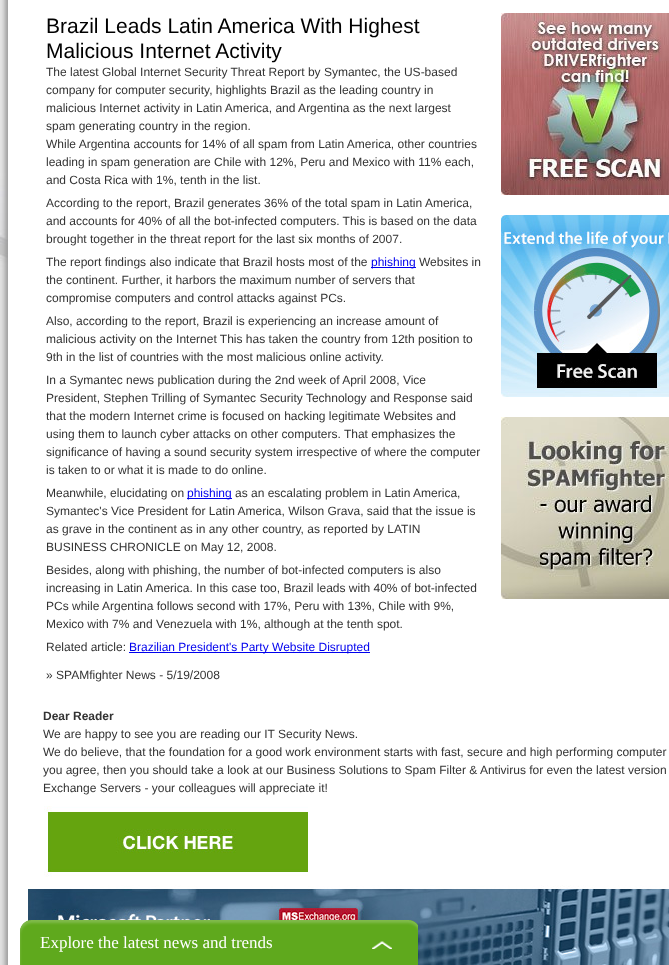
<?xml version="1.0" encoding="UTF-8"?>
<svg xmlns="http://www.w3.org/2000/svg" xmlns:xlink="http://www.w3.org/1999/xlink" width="669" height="965">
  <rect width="100%" height="100%" fill="#e2e2e2" />
  <image x="0" y="0" width="8" height="317" xlink:href="image1.png" />
  <rect x="5" y="-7" width="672" height="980" fill="#999999" filter="blur(2.5px)" />
  <rect x="8" width="661" height="965" fill="#ffffff" />
  <rect x="371" y="267" width="45" height="1" fill="#0000ee" />
  <rect x="187" y="498" width="45" height="1" fill="#0000ee" />
  <rect x="129" y="652" width="241" height="1" fill="#0000ee" />
  <image x="501" y="13" width="168" height="182" xlink:href="image2.png" />
  <image x="501" y="215" width="168" height="182" xlink:href="image3.png" />
  <image x="501" y="417" width="168" height="182" xlink:href="image4.png" />
  <image x="28" y="806" width="641" height="159" xlink:href="image5.png" />
  <image x="20" y="920" width="398" height="45" xlink:href="image6.png" />
  <image x="372" y="941" width="20" height="8" xlink:href="image7.png" />
  <text x="46" y="33" style="font-family: Liberation Sans; font-size: 21px; fill: #000000">Brazil Leads Latin America With Highest</text>
  <text x="46" y="58" style="font-family: Liberation Sans; font-size: 21px; fill: #000000">Malicious Internet Activity</text>
  <text x="46" y="76" style="font-family: Liberation Sans; font-size: 12px; fill: #333333">The latest Global Internet Security Threat Report by Symantec, the US-based</text>
  <text x="46" y="94" style="font-family: Liberation Sans; font-size: 12px; fill: #333333">company for computer security, highlights Brazil as the leading country in</text>
  <text x="46" y="112" style="font-family: Liberation Sans; font-size: 12px; fill: #333333">malicious Internet activity in Latin America, and Argentina as the next largest</text>
  <text x="46" y="130" style="font-family: Liberation Sans; font-size: 12px; fill: #333333">spam generating country in the region.</text>
  <text x="46" y="148" style="font-family: Liberation Sans; font-size: 12px; fill: #333333">While Argentina accounts for 14% of all spam from Latin America, other countries</text>
  <text x="46" y="166" style="font-family: Liberation Sans; font-size: 12px; fill: #333333">leading in spam generation are Chile with 12%, Peru and Mexico with 11% each,</text>
  <text x="46" y="184" style="font-family: Liberation Sans; font-size: 12px; fill: #333333">and Costa Rica with 1%, tenth in the list.</text>
  <text x="46" y="207" style="font-family: Liberation Sans; font-size: 12px; fill: #333333">According to the report, Brazil generates 36% of the total spam in Latin America,</text>
  <text x="46" y="225" style="font-family: Liberation Sans; font-size: 12px; fill: #333333">and accounts for 40% of all the bot-infected computers. This is based on the data</text>
  <text x="46" y="243" style="font-family: Liberation Sans; font-size: 12px; fill: #333333">brought together in the threat report for the last six months of 2007.</text>
  <text x="46" y="266" style="font-family: Liberation Sans; font-size: 12px; fill: #333333">The report findings also indicate that Brazil hosts most of the</text>
  <text x="371" y="266" style="font-family: Liberation Sans; font-size: 12px; fill: #0000ee">phishing</text>
  <text x="419" y="266" style="font-family: Liberation Sans; font-size: 12px; fill: #333333">Websites in</text>
  <text x="46" y="284" style="font-family: Liberation Sans; font-size: 12px; fill: #333333">the continent. Further, it harbors the maximum number of servers that</text>
  <text x="46" y="302" style="font-family: Liberation Sans; font-size: 12px; fill: #333333">compromise computers and control attacks against PCs.</text>
  <text x="46" y="325" style="font-family: Liberation Sans; font-size: 12px; fill: #333333">Also, according to the report, Brazil is experiencing an increase amount of</text>
  <text x="46" y="343" style="font-family: Liberation Sans; font-size: 12px; fill: #333333">malicious activity on the Internet This has taken the country from 12th position to</text>
  <text x="46" y="361" style="font-family: Liberation Sans; font-size: 12px; fill: #333333">9th in the list of countries with the most malicious online activity.</text>
  <text x="46" y="384" style="font-family: Liberation Sans; font-size: 12px; fill: #333333">In a Symantec news publication during the 2nd week of April 2008, Vice</text>
  <text x="46" y="402" style="font-family: Liberation Sans; font-size: 12px; fill: #333333">President, Stephen Trilling of Symantec Security Technology and Response said</text>
  <text x="46" y="420" style="font-family: Liberation Sans; font-size: 12px; fill: #333333">that the modern Internet crime is focused on hacking legitimate Websites and</text>
  <text x="46" y="438" style="font-family: Liberation Sans; font-size: 12px; fill: #333333">using them to launch cyber attacks on other computers. That emphasizes the</text>
  <text x="46" y="456" style="font-family: Liberation Sans; font-size: 12px; fill: #333333">significance of having a sound security system irrespective of where the computer</text>
  <text x="46" y="474" style="font-family: Liberation Sans; font-size: 12px; fill: #333333">is taken to or what it is made to do online.</text>
  <text x="46" y="497" style="font-family: Liberation Sans; font-size: 12px; fill: #333333">Meanwhile, elucidating on</text>
  <text x="187" y="497" style="font-family: Liberation Sans; font-size: 12px; fill: #0000ee">phishing</text>
  <text x="235" y="497" style="font-family: Liberation Sans; font-size: 12px; fill: #333333">as an escalating problem in Latin America,</text>
  <text x="46" y="515" style="font-family: Liberation Sans; font-size: 12px; fill: #333333">Symantec's Vice President for Latin America, Wilson Grava, said that the issue is</text>
  <text x="46" y="533" style="font-family: Liberation Sans; font-size: 12px; fill: #333333">as grave in the continent as in any other country, as reported by LATIN</text>
  <text x="46" y="551" style="font-family: Liberation Sans; font-size: 12px; fill: #333333">BUSINESS CHRONICLE on May 12, 2008.</text>
  <text x="46" y="574" style="font-family: Liberation Sans; font-size: 12px; fill: #333333">Besides, along with phishing, the number of bot-infected computers is also</text>
  <text x="46" y="592" style="font-family: Liberation Sans; font-size: 12px; fill: #333333">increasing in Latin America. In this case too, Brazil leads with 40% of bot-infected</text>
  <text x="46" y="610" style="font-family: Liberation Sans; font-size: 12px; fill: #333333">PCs while Argentina follows second with 17%, Peru with 13%, Chile with 9%,</text>
  <text x="46" y="628" style="font-family: Liberation Sans; font-size: 12px; fill: #333333">Mexico with 7% and Venezuela with 1%, although at the tenth spot.</text>
  <text x="46" y="651" style="font-family: Liberation Sans; font-size: 12px; fill: #333333">Related article:</text>
  <text x="129" y="651" style="font-family: Liberation Sans; font-size: 12px; fill: #0000ee">Brazilian President's Party Website Disrupted</text>
  <text x="46" y="679" style="font-family: Liberation Sans; font-size: 12px; fill: #333333">» SPAMfighter News - 5/19/2008</text>
  <text x="43" y="720" style="font-family: Liberation Sans; font-size: 12px; font-weight: bold; fill: #333333">Dear Reader</text>
  <text x="43" y="738" style="font-family: Liberation Sans; font-size: 12px; fill: #333333">We are happy to see you are reading our IT Security News.</text>
  <text x="43" y="756" style="font-family: Liberation Sans; font-size: 12px; fill: #333333">We do believe, that the foundation for a good work environment starts with fast, secure and high performing computer</text>
  <text x="43" y="774" style="font-family: Liberation Sans; font-size: 12px; fill: #333333">you agree, then you should take a look at our Business Solutions to Spam Filter &amp; Antivirus for even the latest version</text>
  <text x="43" y="792" style="font-family: Liberation Sans; font-size: 12px; fill: #333333">Exchange Servers - your colleagues will appreciate it!</text>
  <text x="40" y="948" style="font-family: Liberation Serif; font-size: 17px; fill: #ffffff">Explore the latest news and trends</text>
</svg>
